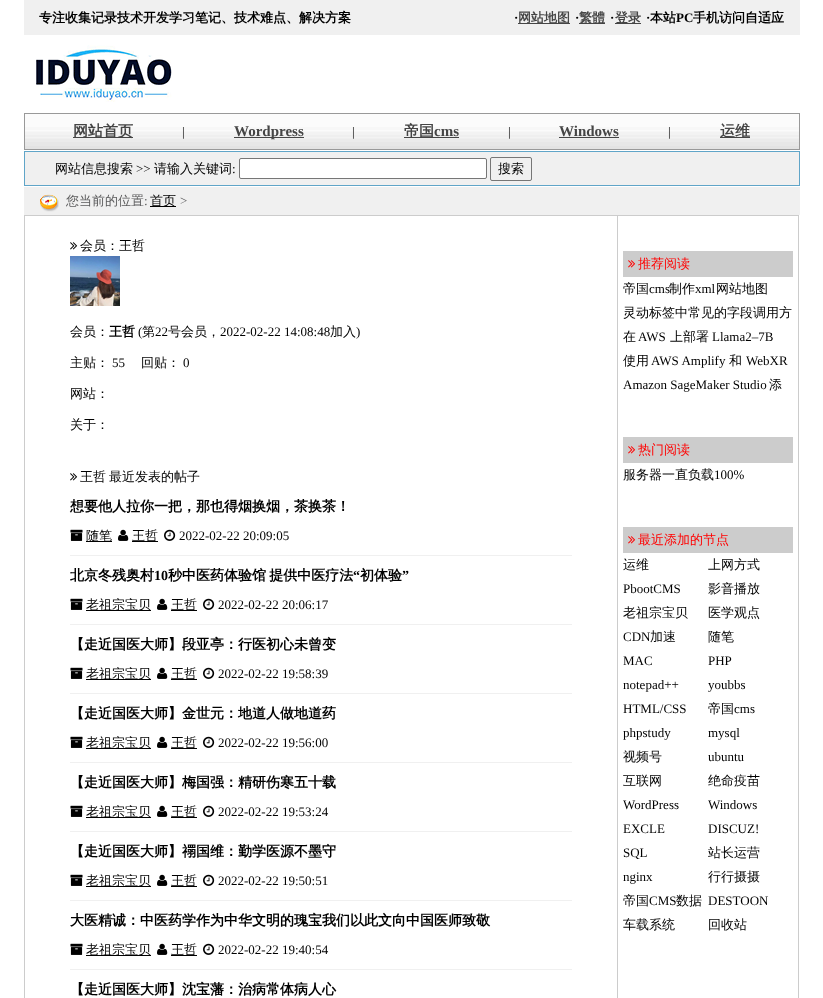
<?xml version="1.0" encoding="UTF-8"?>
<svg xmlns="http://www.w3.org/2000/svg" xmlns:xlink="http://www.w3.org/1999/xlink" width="823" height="998">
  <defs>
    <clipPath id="clip1"><rect x="708" y="673" width="85" height="24" /></clipPath>
    <clipPath id="clip2"><rect x="708" y="769" width="85" height="24" /></clipPath>
  </defs>
  <rect width="100%" height="100%" fill="#ffffff" />
  <rect x="24" width="776" height="35" fill="#f0f0f0" />
  <rect x="518" y="23" width="52" height="1" fill="#454545" />
  <rect x="579" y="23" width="26" height="1" fill="#454545" />
  <rect x="615" y="23" width="26" height="1" fill="#454545" />
  <image x="36" y="45" width="136" height="57" xlink:href="image1.png" />
  <image x="25" y="114" width="774" height="35" xlink:href="image2.png" />
  <rect x="24.5" y="113.5" width="775" height="36" fill="none" stroke="#999999" />
  <rect x="73" y="137" width="60" height="1" fill="#454545" />
  <rect x="234" y="137" width="70" height="1" fill="#454545" />
  <rect x="404" y="137" width="55" height="1" fill="#454545" />
  <rect x="559" y="137" width="60" height="1" fill="#454545" />
  <rect x="720" y="137" width="30" height="1" fill="#454545" />
  <rect x="24.5" y="151.5" width="775" height="34" fill="#f0f0f0" stroke="#60a5c8" />
  <rect x="239.5" y="158.5" width="247" height="20" rx="1.5" fill="#ffffff" stroke="#767676" />
  <rect x="490.5" y="157.5" width="41" height="23" rx="1.5" fill="none" stroke="#767676" />
  <rect x="24" y="187" width="776" height="28" fill="#f0f0f0" />
  <image x="40" y="194" width="19" height="18" xlink:href="image3.png" />
  <rect x="150" y="206" width="26" height="1" fill="#000000" />
  <rect x="24.5" y="215.5" width="774" height="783" fill="none" stroke="#cccccc" />
  <rect x="617" y="216" width="1" height="782" fill="#cccccc" />
  <image x="70" y="242" width="8" height="8" xlink:href="image4.png" />
  <image x="70" y="256" width="50" height="50" xlink:href="image5.png" />
  <image x="70" y="473" width="8" height="8" xlink:href="image4.png" />
  <rect x="70" y="555" width="502" height="1" fill="#f0f0f0" />
  <image x="70" y="529" width="13" height="12" xlink:href="image6.png" />
  <rect x="86" y="541" width="26" height="1" fill="#000000" />
  <image x="118" y="529" width="11" height="12" xlink:href="image7.png" />
  <rect x="132" y="541" width="26" height="1" fill="#000000" />
  <image x="164" y="529" width="12" height="12" xlink:href="image8.png" />
  <rect x="70" y="624" width="502" height="1" fill="#f0f0f0" />
  <image x="70" y="598" width="13" height="12" xlink:href="image6.png" />
  <rect x="86" y="610" width="65" height="1" fill="#000000" />
  <image x="157" y="598" width="11" height="12" xlink:href="image7.png" />
  <rect x="171" y="610" width="26" height="1" fill="#000000" />
  <image x="203" y="598" width="12" height="12" xlink:href="image8.png" />
  <rect x="70" y="693" width="502" height="1" fill="#f0f0f0" />
  <image x="70" y="667" width="13" height="12" xlink:href="image6.png" />
  <rect x="86" y="679" width="65" height="1" fill="#000000" />
  <image x="157" y="667" width="11" height="12" xlink:href="image7.png" />
  <rect x="171" y="679" width="26" height="1" fill="#000000" />
  <image x="203" y="667" width="12" height="12" xlink:href="image8.png" />
  <rect x="70" y="762" width="502" height="1" fill="#f0f0f0" />
  <image x="70" y="736" width="13" height="12" xlink:href="image6.png" />
  <rect x="86" y="748" width="65" height="1" fill="#000000" />
  <image x="157" y="736" width="11" height="12" xlink:href="image7.png" />
  <rect x="171" y="748" width="26" height="1" fill="#000000" />
  <image x="203" y="736" width="12" height="12" xlink:href="image8.png" />
  <rect x="70" y="831" width="502" height="1" fill="#f0f0f0" />
  <image x="70" y="805" width="13" height="12" xlink:href="image6.png" />
  <rect x="86" y="817" width="65" height="1" fill="#000000" />
  <image x="157" y="805" width="11" height="12" xlink:href="image7.png" />
  <rect x="171" y="817" width="26" height="1" fill="#000000" />
  <image x="203" y="805" width="12" height="12" xlink:href="image8.png" />
  <rect x="70" y="900" width="502" height="1" fill="#f0f0f0" />
  <image x="70" y="874" width="13" height="12" xlink:href="image6.png" />
  <rect x="86" y="886" width="65" height="1" fill="#000000" />
  <image x="157" y="874" width="11" height="12" xlink:href="image7.png" />
  <rect x="171" y="886" width="26" height="1" fill="#000000" />
  <image x="203" y="874" width="12" height="12" xlink:href="image8.png" />
  <rect x="70" y="969" width="502" height="1" fill="#f0f0f0" />
  <image x="70" y="943" width="13" height="12" xlink:href="image6.png" />
  <rect x="86" y="955" width="65" height="1" fill="#000000" />
  <image x="157" y="943" width="11" height="12" xlink:href="image7.png" />
  <rect x="171" y="955" width="26" height="1" fill="#000000" />
  <image x="203" y="943" width="12" height="12" xlink:href="image8.png" />
  <rect x="623" y="251" width="170" height="26" fill="#cccccc" />
  <image x="628" y="260" width="8" height="8" xlink:href="image9.png" />
  <rect x="623" y="437" width="170" height="26" fill="#cccccc" />
  <image x="628" y="446" width="8" height="8" xlink:href="image9.png" />
  <rect x="623" y="527" width="170" height="26" fill="#cccccc" />
  <image x="628" y="536" width="8" height="8" xlink:href="image9.png" />
  <text x="39" y="22" style="font-family: WenQuanYi Zen Hei; font-size: 13px; font-weight: bold; fill: #000000">专注收集记录技术开发学习笔记、技术难点、解决方案</text>
  <text x="514" y="22" style="font-family: Liberation Serif; font-size: 13px; font-weight: bold; fill: #000000">·</text>
  <text x="518" y="22" style="font-family: WenQuanYi Zen Hei; font-size: 13px; font-weight: bold; fill: #454545">网站地图</text>
  <text x="575" y="22" style="font-family: Liberation Serif; font-size: 13px; font-weight: bold; fill: #000000">·</text>
  <text x="579" y="22" style="font-family: WenQuanYi Zen Hei; font-size: 13px; font-weight: bold; fill: #454545">繁體</text>
  <text x="610" y="22" style="font-family: Liberation Serif; font-size: 13px; font-weight: bold; fill: #000000">·</text>
  <text x="615" y="22" style="font-family: WenQuanYi Zen Hei; font-size: 13px; font-weight: bold; fill: #454545">登录</text>
  <text x="646" y="22" style="font-family: Liberation Serif; font-size: 13px; font-weight: bold; fill: #000000">·</text>
  <text x="650" y="22" style="font-family: WenQuanYi Zen Hei; font-size: 13px; font-weight: bold; fill: #000000">本站</text>
  <text x="676" y="22" style="font-family: Liberation Serif; font-size: 13px; font-weight: bold; fill: #000000">PC</text>
  <text x="693" y="22" style="font-family: WenQuanYi Zen Hei; font-size: 13px; font-weight: bold; fill: #000000">手机访问自适应</text>
  <text x="73" y="136" style="font-family: WenQuanYi Zen Hei; font-size: 15px; font-weight: bold; fill: #454545">网站首页</text>
  <text x="182" y="136" style="font-family: Liberation Serif; font-size: 13px; fill: #000000">|</text>
  <text x="234" y="136" style="font-family: Liberation Serif; font-size: 15px; font-weight: bold; fill: #454545">Wordpress</text>
  <text x="352" y="136" style="font-family: Liberation Serif; font-size: 13px; fill: #000000">|</text>
  <text x="404" y="136" style="font-family: WenQuanYi Zen Hei; font-size: 15px; font-weight: bold; fill: #454545">帝国</text>
  <text x="434" y="136" style="font-family: Liberation Serif; font-size: 15px; font-weight: bold; fill: #454545">cms</text>
  <text x="508" y="136" style="font-family: Liberation Serif; font-size: 13px; fill: #000000">|</text>
  <text x="559" y="136" style="font-family: Liberation Serif; font-size: 15px; font-weight: bold; fill: #454545">Windows</text>
  <text x="668" y="136" style="font-family: Liberation Serif; font-size: 13px; fill: #000000">|</text>
  <text x="720" y="136" style="font-family: WenQuanYi Zen Hei; font-size: 15px; font-weight: bold; fill: #454545">运维</text>
  <text x="55" y="173" style="font-family: WenQuanYi Zen Hei; font-size: 13px; font-weight: 500; fill: #000000">网站信息搜索</text>
  <text x="136" y="173" style="font-family: Liberation Serif; font-size: 13px; fill: #000000">&gt;&gt;</text>
  <text x="154" y="173" style="font-family: WenQuanYi Zen Hei; font-size: 13px; font-weight: 500; fill: #000000">请输入关键词</text>
  <text x="232" y="173" style="font-family: Liberation Serif; font-size: 13px; fill: #000000">:</text>
  <text x="498" y="173" style="font-family: WenQuanYi Zen Hei; font-size: 13px; font-weight: 500; fill: #000000">搜索</text>
  <text x="66" y="205" style="font-family: WenQuanYi Zen Hei; font-size: 13px; font-weight: 500; fill: #5b5b5c">您当前的位置</text>
  <text x="144" y="205" style="font-family: Liberation Serif; font-size: 13px; fill: #5b5b5c">:</text>
  <text x="150" y="205" style="font-family: WenQuanYi Zen Hei; font-size: 13px; font-weight: 500; fill: #000000">首页</text>
  <text x="180" y="205" style="font-family: Liberation Serif; font-size: 13px; fill: #5b5b5c">&gt;</text>
  <text x="80" y="250" style="font-family: WenQuanYi Zen Hei; font-size: 13px; font-weight: 500; fill: #000000">会员：王哲</text>
  <text x="70" y="336" style="font-family: WenQuanYi Zen Hei; font-size: 13px; font-weight: 500; fill: #000000">会员：</text>
  <text x="109" y="336" style="font-family: WenQuanYi Zen Hei; font-size: 13px; font-weight: bold; fill: #000000">王哲</text>
  <text x="138" y="336" style="font-family: Liberation Serif; font-size: 13px; fill: #000000">(</text>
  <text x="142" y="336" style="font-family: WenQuanYi Zen Hei; font-size: 13px; font-weight: 500; fill: #000000">第</text>
  <text x="155" y="336" style="font-family: Liberation Serif; font-size: 13px; fill: #000000">22</text>
  <text x="168" y="336" style="font-family: WenQuanYi Zen Hei; font-size: 13px; font-weight: 500; fill: #000000">号会员，</text>
  <text x="220" y="336" style="font-family: Liberation Serif; font-size: 13px; fill: #000000">2022-02-22 14:08:48</text>
  <text x="330" y="336" style="font-family: WenQuanYi Zen Hei; font-size: 13px; font-weight: 500; fill: #000000">加入</text>
  <text x="356" y="336" style="font-family: Liberation Serif; font-size: 13px; fill: #000000">)</text>
  <text x="70" y="367" style="font-family: WenQuanYi Zen Hei; font-size: 13px; font-weight: 500; fill: #000000">主贴：</text>
  <text x="112" y="367" style="font-family: Liberation Serif; font-size: 13px; fill: #000000">55</text>
  <text x="141" y="367" style="font-family: WenQuanYi Zen Hei; font-size: 13px; font-weight: 500; fill: #000000">回贴：</text>
  <text x="183" y="367" style="font-family: Liberation Serif; font-size: 13px; fill: #000000">0</text>
  <text x="70" y="398" style="font-family: WenQuanYi Zen Hei; font-size: 13px; font-weight: 500; fill: #000000">网站：</text>
  <text x="70" y="429" style="font-family: WenQuanYi Zen Hei; font-size: 13px; font-weight: 500; fill: #000000">关于：</text>
  <text x="80" y="481" word-spacing="-1" style="font-family: WenQuanYi Zen Hei; font-size: 13px; font-weight: 500; fill: #000000">王哲 最近发表的帖子</text>
  <text x="70" y="511" style="font-family: WenQuanYi Zen Hei; font-size: 14px; font-weight: bold; fill: #000000">想要他人拉你一把，那也得烟换烟，茶换茶！</text>
  <text x="86" y="540" style="font-family: WenQuanYi Zen Hei; font-size: 13px; font-weight: 500; fill: #000000">随笔</text>
  <text x="132" y="540" style="font-family: WenQuanYi Zen Hei; font-size: 13px; font-weight: 500; fill: #000000">王哲</text>
  <text x="179" y="540" style="font-family: Liberation Serif; font-size: 13px; fill: #000000">2022-02-22 20:09:05</text>
  <text x="70" y="580" style="font-family: WenQuanYi Zen Hei; font-size: 14px; font-weight: bold; fill: #000000">北京冬残奥村</text>
  <text x="154" y="580" style="font-family: Liberation Serif; font-size: 14px; font-weight: bold; fill: #000000">10</text>
  <text x="168" y="580" word-spacing="-1" style="font-family: WenQuanYi Zen Hei; font-size: 14px; font-weight: bold; fill: #000000">秒中医药体验馆 提供中医疗法</text>
  <text x="353" y="580" style="font-family: Liberation Serif; font-size: 14px; font-weight: bold; fill: #000000">“</text>
  <text x="360" y="580" style="font-family: WenQuanYi Zen Hei; font-size: 14px; font-weight: bold; fill: #000000">初体验</text>
  <text x="402" y="580" style="font-family: Liberation Serif; font-size: 14px; font-weight: bold; fill: #000000">”</text>
  <text x="86" y="609" style="font-family: WenQuanYi Zen Hei; font-size: 13px; font-weight: 500; fill: #000000">老祖宗宝贝</text>
  <text x="171" y="609" style="font-family: WenQuanYi Zen Hei; font-size: 13px; font-weight: 500; fill: #000000">王哲</text>
  <text x="218" y="609" style="font-family: Liberation Serif; font-size: 13px; fill: #000000">2022-02-22 20:06:17</text>
  <text x="70" y="649" style="font-family: WenQuanYi Zen Hei; font-size: 14px; font-weight: bold; fill: #000000">【走近国医大师】段亚亭：行医初心未曾变</text>
  <text x="86" y="678" style="font-family: WenQuanYi Zen Hei; font-size: 13px; font-weight: 500; fill: #000000">老祖宗宝贝</text>
  <text x="171" y="678" style="font-family: WenQuanYi Zen Hei; font-size: 13px; font-weight: 500; fill: #000000">王哲</text>
  <text x="218" y="678" style="font-family: Liberation Serif; font-size: 13px; fill: #000000">2022-02-22 19:58:39</text>
  <text x="70" y="718" style="font-family: WenQuanYi Zen Hei; font-size: 14px; font-weight: bold; fill: #000000">【走近国医大师】金世元：地道人做地道药</text>
  <text x="86" y="747" style="font-family: WenQuanYi Zen Hei; font-size: 13px; font-weight: 500; fill: #000000">老祖宗宝贝</text>
  <text x="171" y="747" style="font-family: WenQuanYi Zen Hei; font-size: 13px; font-weight: 500; fill: #000000">王哲</text>
  <text x="218" y="747" style="font-family: Liberation Serif; font-size: 13px; fill: #000000">2022-02-22 19:56:00</text>
  <text x="70" y="787" style="font-family: WenQuanYi Zen Hei; font-size: 14px; font-weight: bold; fill: #000000">【走近国医大师】梅国强：精研伤寒五十载</text>
  <text x="86" y="816" style="font-family: WenQuanYi Zen Hei; font-size: 13px; font-weight: 500; fill: #000000">老祖宗宝贝</text>
  <text x="171" y="816" style="font-family: WenQuanYi Zen Hei; font-size: 13px; font-weight: 500; fill: #000000">王哲</text>
  <text x="218" y="816" style="font-family: Liberation Serif; font-size: 13px; fill: #000000">2022-02-22 19:53:24</text>
  <text x="70" y="856" style="font-family: WenQuanYi Zen Hei; font-size: 14px; font-weight: bold; fill: #000000">【走近国医大师】禤国维：勤学医源不墨守</text>
  <text x="86" y="885" style="font-family: WenQuanYi Zen Hei; font-size: 13px; font-weight: 500; fill: #000000">老祖宗宝贝</text>
  <text x="171" y="885" style="font-family: WenQuanYi Zen Hei; font-size: 13px; font-weight: 500; fill: #000000">王哲</text>
  <text x="218" y="885" style="font-family: Liberation Serif; font-size: 13px; fill: #000000">2022-02-22 19:50:51</text>
  <text x="70" y="925" style="font-family: WenQuanYi Zen Hei; font-size: 14px; font-weight: bold; fill: #000000">大医精诚：中医药学作为中华文明的瑰宝我们以此文向中国医师致敬</text>
  <text x="86" y="954" style="font-family: WenQuanYi Zen Hei; font-size: 13px; font-weight: 500; fill: #000000">老祖宗宝贝</text>
  <text x="171" y="954" style="font-family: WenQuanYi Zen Hei; font-size: 13px; font-weight: 500; fill: #000000">王哲</text>
  <text x="218" y="954" style="font-family: Liberation Serif; font-size: 13px; fill: #000000">2022-02-22 19:40:54</text>
  <text x="70" y="994" style="font-family: WenQuanYi Zen Hei; font-size: 14px; font-weight: bold; fill: #000000">【走近国医大师】沈宝藩：治病常体病人心</text>
  <text x="638" y="268" style="font-family: WenQuanYi Zen Hei; font-size: 13px; font-weight: 500; fill: #ff0000">推荐阅读</text>
  <text x="623" y="293" style="font-family: WenQuanYi Zen Hei; font-size: 13px; font-weight: 500; fill: #000000">帝国</text>
  <text x="649" y="293" style="font-family: Liberation Serif; font-size: 13px; fill: #000000">cms</text>
  <text x="669" y="293" style="font-family: WenQuanYi Zen Hei; font-size: 13px; font-weight: 500; fill: #000000">制作</text>
  <text x="695" y="293" style="font-family: Liberation Serif; font-size: 13px; fill: #000000">xml</text>
  <text x="716" y="293" style="font-family: WenQuanYi Zen Hei; font-size: 13px; font-weight: 500; fill: #000000">网站地图</text>
  <text x="623" y="317" style="font-family: WenQuanYi Zen Hei; font-size: 13px; font-weight: 500; fill: #000000">灵动标签中常见的字段调用方</text>
  <text x="623" y="341" style="font-family: WenQuanYi Zen Hei; font-size: 13px; font-weight: 500; fill: #000000">在</text>
  <text x="638" y="341" style="font-family: Liberation Serif; font-size: 13px; fill: #000000">AWS</text>
  <text x="670" y="341" style="font-family: WenQuanYi Zen Hei; font-size: 13px; font-weight: 500; fill: #000000">上部署</text>
  <text x="712" y="341" style="font-family: Liberation Serif; font-size: 13px; fill: #000000">Llama2–7B</text>
  <text x="623" y="365" style="font-family: WenQuanYi Zen Hei; font-size: 13px; font-weight: 500; fill: #000000">使用</text>
  <text x="651" y="365" style="font-family: Liberation Serif; font-size: 13px; fill: #000000">AWS Amplify</text>
  <text x="729" y="365" style="font-family: WenQuanYi Zen Hei; font-size: 13px; font-weight: 500; fill: #000000">和</text>
  <text x="746" y="365" style="font-family: Liberation Serif; font-size: 13px; fill: #000000">WebXR</text>
  <text x="623" y="389" style="font-family: Liberation Serif; font-size: 13px; fill: #000000">Amazon SageMaker Studio</text>
  <text x="769" y="389" style="font-family: WenQuanYi Zen Hei; font-size: 13px; font-weight: 500; fill: #000000">添</text>
  <text x="638" y="454" style="font-family: WenQuanYi Zen Hei; font-size: 13px; font-weight: 500; fill: #ff0000">热门阅读</text>
  <text x="623" y="479" style="font-family: WenQuanYi Zen Hei; font-size: 13px; font-weight: 500; fill: #000000">服务器一直负载</text>
  <text x="714" y="479" style="font-family: Liberation Serif; font-size: 13px; fill: #000000">100%</text>
  <text x="638" y="544" style="font-family: WenQuanYi Zen Hei; font-size: 13px; font-weight: 500; fill: #ff0000">最近添加的节点</text>
  <text x="623" y="569" style="font-family: WenQuanYi Zen Hei; font-size: 13px; font-weight: 500; fill: #000000">运维</text>
  <text x="708" y="569" style="font-family: WenQuanYi Zen Hei; font-size: 13px; font-weight: 500; fill: #000000">上网方式</text>
  <text x="623" y="593" style="font-family: Liberation Serif; font-size: 13px; fill: #000000">PbootCMS</text>
  <text x="708" y="593" style="font-family: WenQuanYi Zen Hei; font-size: 13px; font-weight: 500; fill: #000000">影音播放</text>
  <text x="623" y="617" style="font-family: WenQuanYi Zen Hei; font-size: 13px; font-weight: 500; fill: #000000">老祖宗宝贝</text>
  <text x="708" y="617" style="font-family: WenQuanYi Zen Hei; font-size: 13px; font-weight: 500; fill: #000000">医学观点</text>
  <text x="623" y="641" style="font-family: Liberation Serif; font-size: 13px; fill: #000000">CDN</text>
  <text x="650" y="641" style="font-family: WenQuanYi Zen Hei; font-size: 13px; font-weight: 500; fill: #000000">加速</text>
  <text x="708" y="641" style="font-family: WenQuanYi Zen Hei; font-size: 13px; font-weight: 500; fill: #000000">随笔</text>
  <text x="623" y="665" style="font-family: Liberation Serif; font-size: 13px; fill: #000000">MAC</text>
  <text x="708" y="665" style="font-family: Liberation Serif; font-size: 13px; fill: #000000">PHP</text>
  <text x="623" y="689" style="font-family: Liberation Serif; font-size: 13px; fill: #000000">notepad++</text>
  <g clip-path="url(#clip1)">
    <text x="708" y="689" style="font-family: Liberation Serif; font-size: 13px; fill: #000000">youbbs</text>
  </g>
  <text x="623" y="713" style="font-family: Liberation Serif; font-size: 13px; fill: #000000">HTML/CSS</text>
  <text x="708" y="713" style="font-family: WenQuanYi Zen Hei; font-size: 13px; font-weight: 500; fill: #000000">帝国</text>
  <text x="734" y="713" style="font-family: Liberation Serif; font-size: 13px; fill: #000000">cms</text>
  <text x="623" y="737" style="font-family: Liberation Serif; font-size: 13px; fill: #000000">phpstudy</text>
  <text x="708" y="737" style="font-family: Liberation Serif; font-size: 13px; fill: #000000">mysql</text>
  <text x="623" y="761" style="font-family: WenQuanYi Zen Hei; font-size: 13px; font-weight: 500; fill: #000000">视频号</text>
  <text x="708" y="761" style="font-family: Liberation Serif; font-size: 13px; fill: #000000">ubuntu</text>
  <text x="623" y="785" style="font-family: WenQuanYi Zen Hei; font-size: 13px; font-weight: 500; fill: #000000">互联网</text>
  <g clip-path="url(#clip2)">
    <text x="708" y="785" style="font-family: WenQuanYi Zen Hei; font-size: 13px; font-weight: 500; fill: #000000">绝命疫苗</text>
  </g>
  <text x="623" y="809" style="font-family: Liberation Serif; font-size: 13px; fill: #000000">WordPress</text>
  <text x="708" y="809" style="font-family: Liberation Serif; font-size: 13px; fill: #000000">Windows</text>
  <text x="623" y="833" style="font-family: Liberation Serif; font-size: 13px; fill: #000000">EXCLE</text>
  <text x="708" y="833" style="font-family: Liberation Serif; font-size: 13px; fill: #000000">DISCUZ!</text>
  <text x="623" y="857" style="font-family: Liberation Serif; font-size: 13px; fill: #000000">SQL</text>
  <text x="708" y="857" style="font-family: WenQuanYi Zen Hei; font-size: 13px; font-weight: 500; fill: #000000">站长运营</text>
  <text x="623" y="881" style="font-family: Liberation Serif; font-size: 13px; fill: #000000">nginx</text>
  <text x="708" y="881" style="font-family: WenQuanYi Zen Hei; font-size: 13px; font-weight: 500; fill: #000000">行行摄摄</text>
  <text x="623" y="905" style="font-family: WenQuanYi Zen Hei; font-size: 13px; font-weight: 500; fill: #000000">帝国</text>
  <text x="649" y="905" style="font-family: Liberation Serif; font-size: 13px; fill: #000000">CMS</text>
  <text x="676" y="905" style="font-family: WenQuanYi Zen Hei; font-size: 13px; font-weight: 500; fill: #000000">数据</text>
  <text x="708" y="905" style="font-family: Liberation Serif; font-size: 13px; fill: #000000">DESTOON</text>
  <text x="623" y="929" style="font-family: WenQuanYi Zen Hei; font-size: 13px; font-weight: 500; fill: #000000">车载系统</text>
  <text x="708" y="929" style="font-family: WenQuanYi Zen Hei; font-size: 13px; font-weight: 500; fill: #000000">回收站</text>
</svg>
